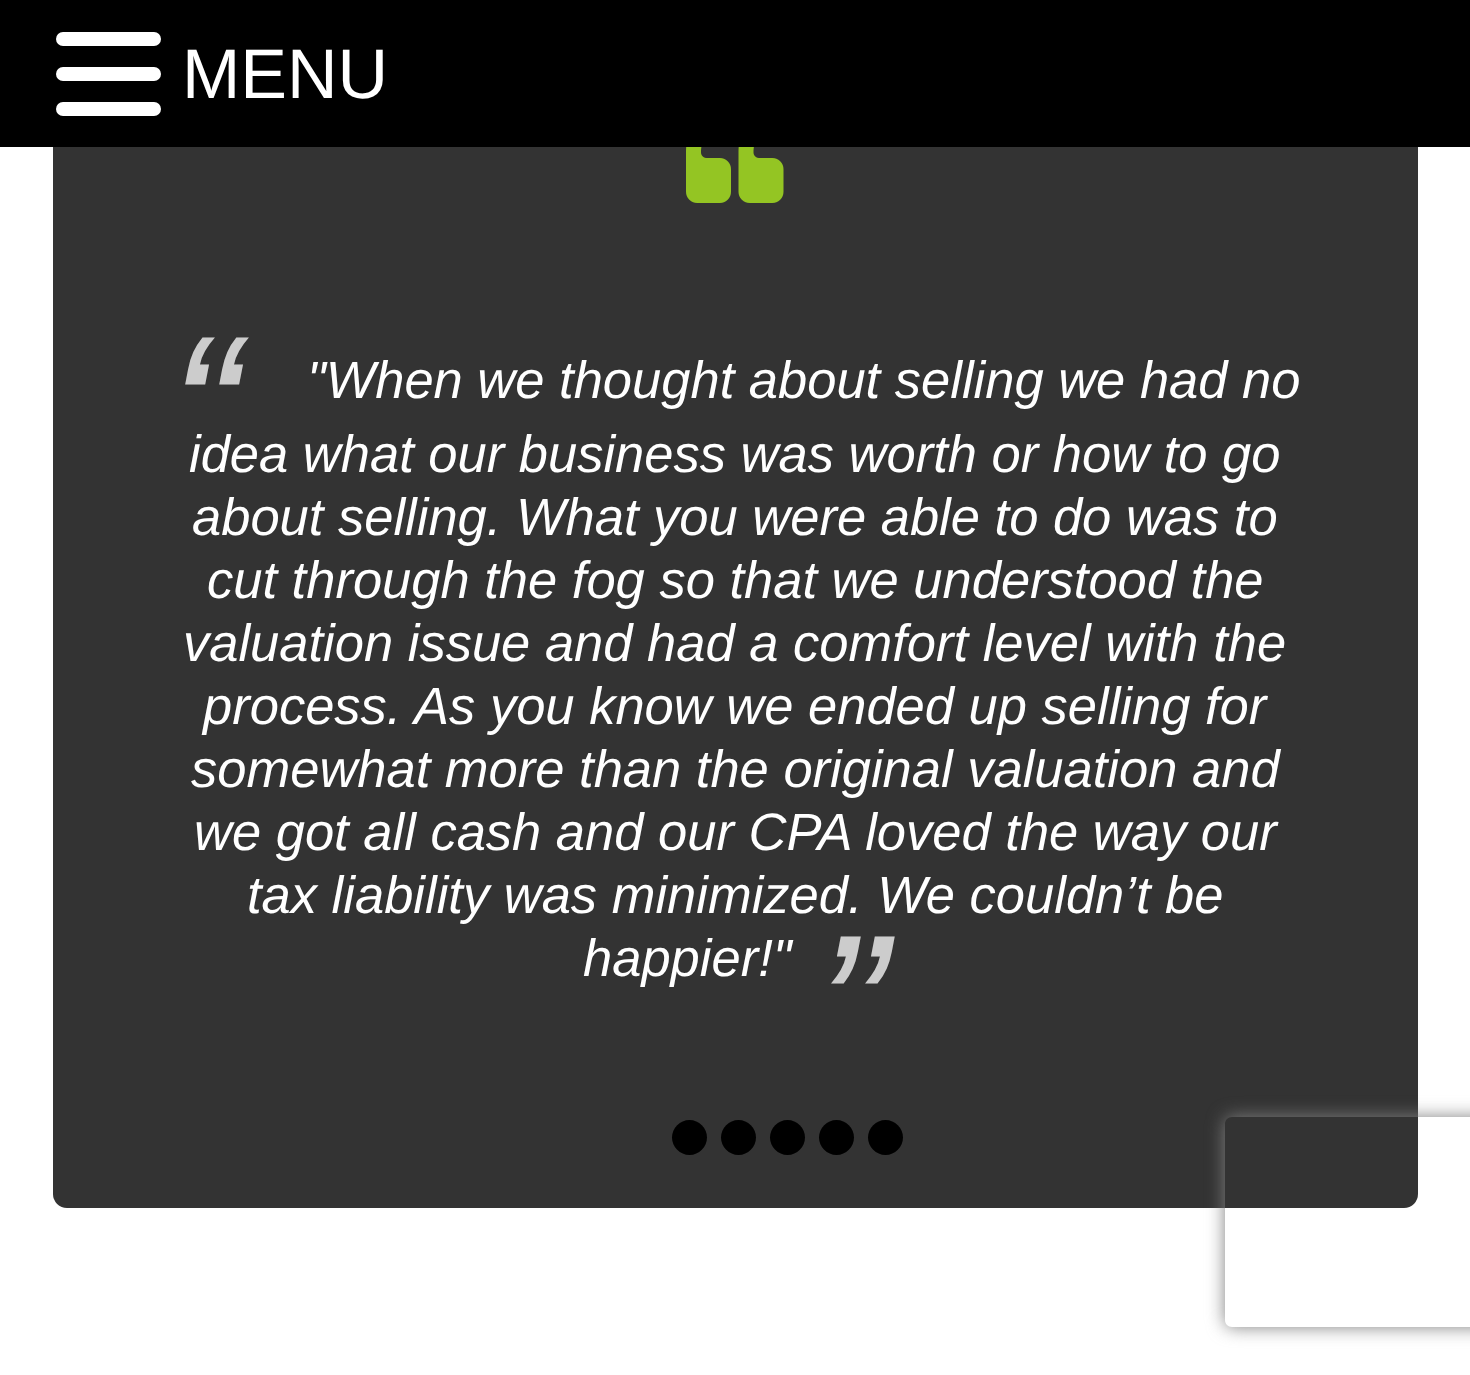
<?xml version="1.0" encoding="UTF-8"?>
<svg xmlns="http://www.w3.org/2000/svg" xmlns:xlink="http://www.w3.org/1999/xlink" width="1470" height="1375">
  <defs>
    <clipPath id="clip1"><path d="M 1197 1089 h 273 v 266 h -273 z m 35 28 h 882 c 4 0 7 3 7 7 v 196 c 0 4 -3 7 -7 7 h -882 c -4 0 -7 -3 -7 -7 v -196 c 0 -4 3 -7 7 -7 z" clip-rule="evenodd" /></clipPath>
  </defs>
  <rect width="100%" height="100%" fill="#ffffff" />
  <rect x="53" y="-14" width="1365" height="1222" rx="14" fill="#333333" />
  <rect width="1470" height="147" fill="#000000" />
  <rect x="56" y="32" width="105" height="14" rx="7" fill="#ffffff" />
  <rect x="56" y="67" width="105" height="14" rx="7" fill="#ffffff" />
  <rect x="56" y="102" width="105" height="14" rx="7" fill="#ffffff" />
  <image x="686" y="147" width="98" height="56" xlink:href="image1.png" />
  <path d="M 689.5 1120 c 9.5 0 17.5 8 17.5 17.5 c 0 9.5 -8 17.5 -17.5 17.5 c -9.5 0 -17.5 -8 -17.5 -17.5 c 0 -9.5 8 -17.5 17.5 -17.5 z" fill="#000000" />
  <path d="M 738.5 1120 c 9.5 0 17.5 8 17.5 17.5 c 0 9.5 -8 17.5 -17.5 17.5 c -9.5 0 -17.5 -8 -17.5 -17.5 c 0 -9.5 8 -17.5 17.5 -17.5 z" fill="#000000" />
  <path d="M 787.5 1120 c 9.5 0 17.5 8 17.5 17.5 c 0 9.5 -8 17.5 -17.5 17.5 c -9.5 0 -17.5 -8 -17.5 -17.5 c 0 -9.5 8 -17.5 17.5 -17.5 z" fill="#000000" />
  <path d="M 836.5 1120 c 9.5 0 17.5 8 17.5 17.5 c 0 9.5 -8 17.5 -17.5 17.5 c -9.5 0 -17.5 -8 -17.5 -17.5 c 0 -9.5 8 -17.5 17.5 -17.5 z" fill="#000000" />
  <path d="M 885.5 1120 c 9.5 0 17.5 8 17.5 17.5 c 0 9.5 -8 17.5 -17.5 17.5 c -9.5 0 -17.5 -8 -17.5 -17.5 c 0 -9.5 8 -17.5 17.5 -17.5 z" fill="#000000" />
  <g clip-path="url(#clip1)">
    <rect x="1225" y="1117" width="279" height="210" rx="7" fill="#808080" filter="blur(9px)" />
  </g>
  <text x="182" y="98" style="font-family: Liberation Sans; font-size: 70px; fill: #ffffff">MENU</text>
  <text x="170" y="482" style="font-family: Liberation Sans; font-size: 210px; font-style: italic; fill: #cccccc">“</text>
  <text x="307" y="398" style="font-family: Liberation Sans; font-size: 52.5px; font-style: italic; fill: #ffffff">"When we thought about selling we had no</text>
  <text x="189" y="472" style="font-family: Liberation Sans; font-size: 52.5px; font-style: italic; fill: #ffffff">idea what our business was worth or how to go</text>
  <text x="192" y="535" style="font-family: Liberation Sans; font-size: 52.5px; font-style: italic; fill: #ffffff">about selling. What you were able to do was to</text>
  <text x="207" y="598" style="font-family: Liberation Sans; font-size: 52.5px; font-style: italic; fill: #ffffff">cut through the fog so that we understood the</text>
  <text x="183" y="661" style="font-family: Liberation Sans; font-size: 52.5px; font-style: italic; fill: #ffffff">valuation issue and had a comfort level with the</text>
  <text x="203" y="724" style="font-family: Liberation Sans; font-size: 52.5px; font-style: italic; fill: #ffffff">process. As you know we ended up selling for</text>
  <text x="191" y="787" style="font-family: Liberation Sans; font-size: 52.5px; font-style: italic; fill: #ffffff">somewhat more than the original valuation and</text>
  <text x="194" y="850" style="font-family: Liberation Sans; font-size: 52.5px; font-style: italic; fill: #ffffff">we got all cash and our CPA loved the way our</text>
  <text x="247" y="913" style="font-family: Liberation Sans; font-size: 52.5px; font-style: italic; fill: #ffffff">tax liability was minimized. We couldn’t be</text>
  <text x="583" y="976" style="font-family: Liberation Sans; font-size: 52.5px; font-style: italic; fill: #ffffff">happier!"</text>
  <text x="817" y="1081" style="font-family: Liberation Sans; font-size: 210px; font-style: italic; fill: #cccccc">”</text>
</svg>
